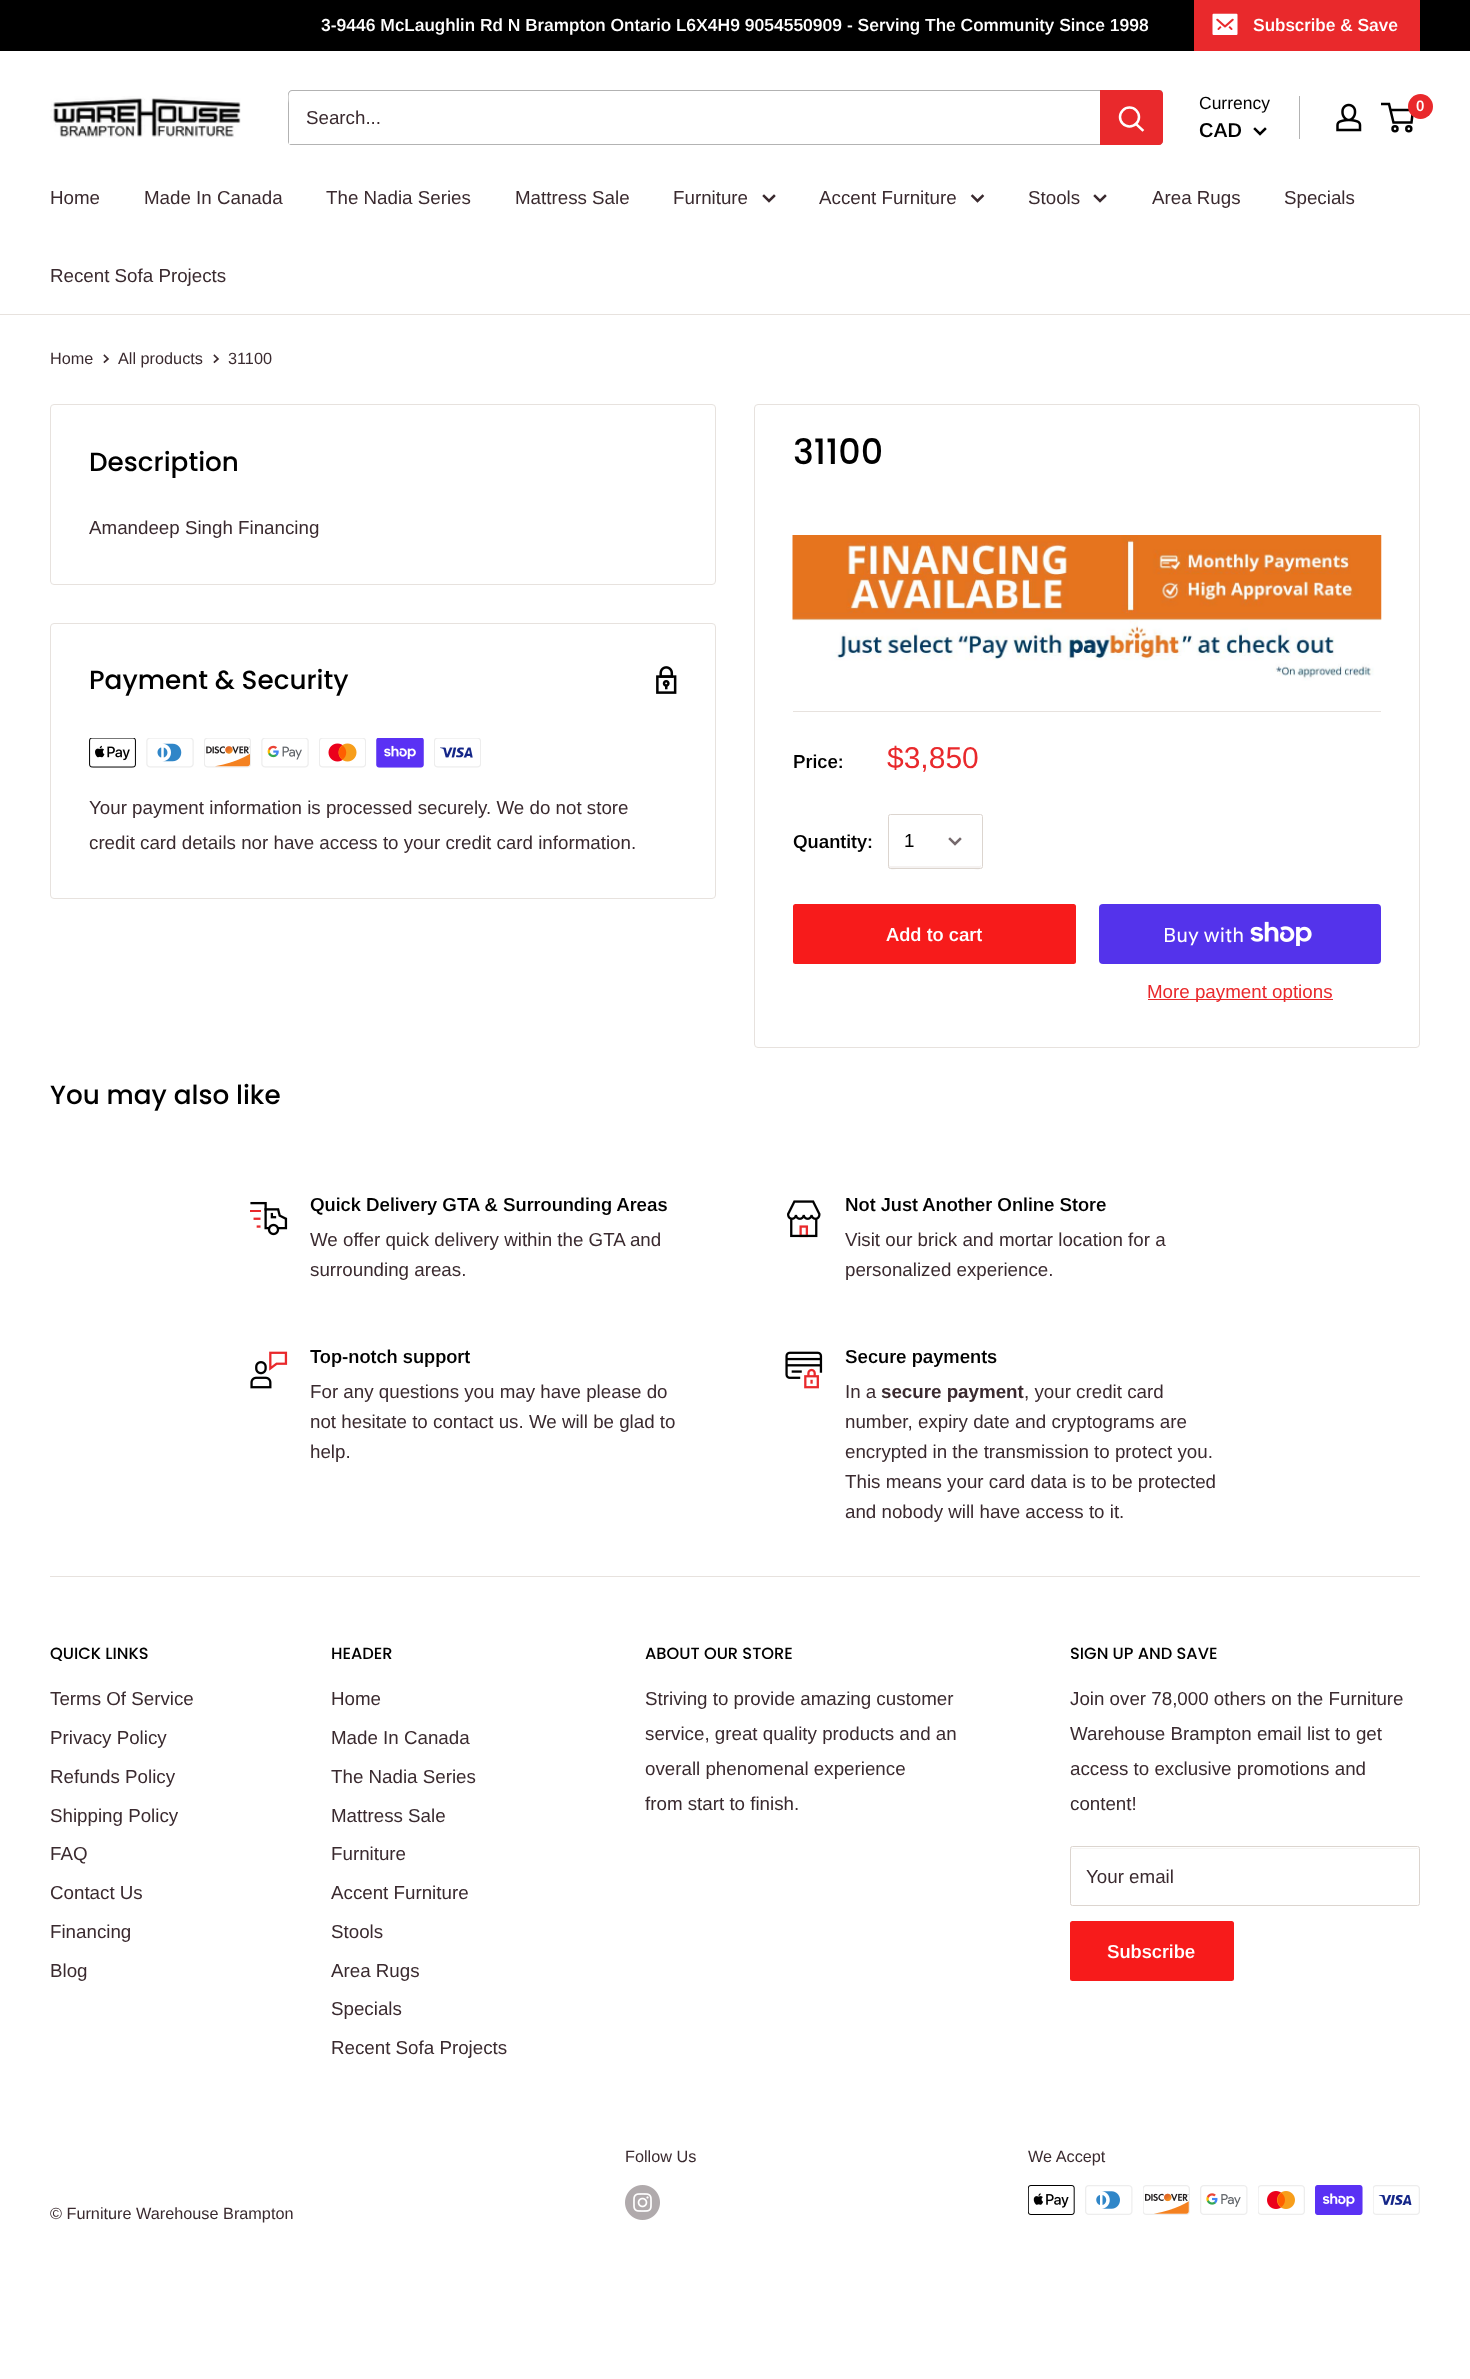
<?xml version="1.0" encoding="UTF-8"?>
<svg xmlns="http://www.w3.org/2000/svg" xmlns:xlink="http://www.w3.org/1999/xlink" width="1470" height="2379">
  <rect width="100%" height="100%" fill="#ffffff" />
  <rect width="1470" height="51" fill="#000000" />
  <rect x="1194" width="226" height="51" fill="#e9292c" />
  <image x="1212" y="13" width="26" height="22" xlink:href="image1.png" />
  <image x="50" y="96" width="191" height="42" xlink:href="image2.png" />
  <path d="M 289 144 c 1 1 2 1 3 1 h 867 c 2 0 4 -2 4 -4 v -47 c 0 -2 -1 -3 -2 -4 v 42 c 0 1 2 12 -3 12 z" fill="#b3b3b3" />
  <path d="M 292 91 h 868 l 2 1 c 0 -1 -2 -2 -3 -2 h -867 c -2 0 -4 2 -4 4 v 47 c 0 1 0 2 1 3 v -41 c 0 -1 -2 -12 3 -12 z" fill="#000000" fill-opacity="0.3" />
  <path d="M 1100 90 h 59 c 2 0 4 2 4 4 v 47 c 0 2 -2 4 -4 4 h -59 z" fill="#e9292c" />
  <path d="M 1142.5 130 l -6.5 -6" fill="none" stroke="#ffffff" stroke-width="2.5" stroke-linecap="square" />
  <circle cx="1129.5" cy="117" r="9.5" fill="none" stroke="#ffffff" stroke-width="2.5" />
  <rect x="1299" y="96" width="1" height="43" fill="#b3b3b3" />
  <path d="M 1265 129 l -5 5 l -5 -5" fill="none" stroke="#000000" stroke-width="2.5" stroke-linecap="square" />
  <image x="1336" y="103" width="26" height="29" xlink:href="image3.png" />
  <circle cx="1395" cy="128.8" r="2.5" fill="none" stroke="#000000" stroke-width="2.5" />
  <circle cx="1408.8" cy="128.8" r="2.5" fill="none" stroke="#000000" stroke-width="2.5" />
  <path d="M 1390.5 110 h 22.5 l -1.5 12.5 h -18 l -4.5 -18.5 h -8" fill="none" stroke="#000000" stroke-width="2.5" />
  <circle cx="1420.5" cy="106.5" r="12.5" fill="#e9292c" />
  <rect y="314" width="1470" height="1" fill="#e7e2de" />
  <path d="M 774 196 l -5 5 l -5 -5" fill="none" stroke="#3a2a2f" stroke-width="2.5" stroke-linecap="square" />
  <path d="M 982.5 196 l -5 5 l -5 -5" fill="none" stroke="#3a2a2f" stroke-width="2.5" stroke-linecap="square" />
  <path d="M 1105 196 l -5 5 l -5 -5" fill="none" stroke="#3a2a2f" stroke-width="2.5" stroke-linecap="square" />
  <path d="M 104.5 355.5 l 3.5 3.5 l -3.5 3" fill="none" stroke="#3a2a2f" stroke-width="1.7" stroke-linecap="square" />
  <path d="M 214.5 355.5 l 3.5 3.5 l -3.5 3" fill="none" stroke="#3a2a2f" stroke-width="1.7" stroke-linecap="square" />
  <rect x="50.5" y="404.5" width="665" height="180" rx="3.5" fill="none" stroke="#e7e2de" />
  <rect x="754.5" y="404.5" width="665" height="643" rx="3.5" fill="none" stroke="#e7e2de" />
  <image x="792" y="535" width="590" height="146" xlink:href="image4.png" />
  <rect x="793" y="711" width="588" height="1" fill="#e7e2de" />
  <path d="M 889 865 c 0 8 7 3 16 3 h 60 c 10 0 16 5 16 -3 l -1 1 h -82 h -8 z" fill="#f5f2f1" />
  <rect x="888.5" y="814.5" width="94" height="54" rx="2" fill="none" stroke="#dcd5cf" />
  <path d="M 960 839 l -5 5 l -5 -5" fill="none" stroke="#756a6d" stroke-width="2.5" stroke-linecap="square" />
  <rect x="793" y="904" width="283" height="60" rx="2.5" fill="#f71b1b" />
  <rect x="1099" y="904" width="282" height="60" rx="4" fill="#5433eb" />
  <image x="1250" y="921" width="62" height="25" xlink:href="image5.png" />
  <rect x="1148" y="999" width="185" height="1" fill="#e9292c" />
  <rect x="50.5" y="623.5" width="665" height="275" rx="3.5" fill="none" stroke="#e7e2de" />
  <image x="656" y="666" width="21" height="28" xlink:href="image6.png" />
  <image x="89" y="738" width="47" height="30" xlink:href="image7.png" />
  <image x="146" y="738" width="48" height="30" xlink:href="image8.png" />
  <image x="204" y="738" width="47" height="30" xlink:href="image9.png" />
  <image x="261" y="738" width="48" height="30" xlink:href="image10.png" />
  <image x="319" y="738" width="47" height="30" xlink:href="image11.png" />
  <image x="376" y="738" width="48" height="30" xlink:href="image12.png" />
  <image x="434" y="738" width="47" height="30" xlink:href="image13.png" />
  <image x="250" y="1201" width="38" height="35" xlink:href="image14.png" />
  <image x="787" y="1200" width="34" height="38" xlink:href="image15.png" />
  <image x="250" y="1351" width="38" height="38" xlink:href="image16.png" />
  <image x="785" y="1351" width="38" height="38" xlink:href="image17.png" />
  <rect x="50" y="1576" width="1370" height="1" fill="#e7e2de" />
  <path d="M 1072 1849 h 346 l 1 1 v -1 l -1 -1 h -347 v 2 z" fill="#f6f5f3" />
  <rect x="1070.5" y="1846.5" width="349" height="59" rx="2" fill="none" stroke="#dcd5cf" />
  <rect x="1070" y="1921" width="164" height="60" rx="2.5" fill="#f71b1b" />
  <image x="625" y="2185" width="35" height="35" xlink:href="image18.png" />
  <image x="1028" y="2185" width="47" height="30" xlink:href="image19.png" />
  <image x="1085" y="2185" width="48" height="30" xlink:href="image20.png" />
  <image x="1143" y="2185" width="47" height="30" xlink:href="image21.png" />
  <image x="1200" y="2185" width="48" height="30" xlink:href="image22.png" />
  <image x="1258" y="2185" width="47" height="30" xlink:href="image23.png" />
  <image x="1315" y="2185" width="48" height="30" xlink:href="image24.png" />
  <image x="1373" y="2185" width="47" height="30" xlink:href="image25.png" />
  <text x="321" y="31" style="font-family: Arimo; font-size: 17.5px; font-weight: 600; fill: #ffffff">3-9446 McLaughlin Rd N Brampton Ontario L6X4H9 9054550909 - Serving The Community Since 1998</text>
  <text x="1253" y="31" style="font-family: Arimo; font-size: 17.5px; font-weight: 600; fill: #ffffff">Subscribe &amp; Save</text>
  <text x="306" y="124" style="font-family: Arimo; font-size: 18.75px; fill: #3a2a2f">Search...</text>
  <text x="1199" y="109" style="font-family: Arimo; font-size: 17.5px; fill: #000000">Currency</text>
  <text x="1199" y="137" style="font-family: Arimo; font-size: 20px; font-weight: 600; fill: #000000">CAD</text>
  <text x="1416" y="111" style="font-family: Arimo; font-size: 15px; font-weight: 600; fill: #ffffff">0</text>
  <text x="50" y="204" style="font-family: Arimo; font-size: 18.75px; fill: #3a2a2f">Home</text>
  <text x="144" y="204" style="font-family: Arimo; font-size: 18.75px; fill: #3a2a2f">Made In Canada</text>
  <text x="326" y="204" style="font-family: Arimo; font-size: 18.75px; fill: #3a2a2f">The Nadia Series</text>
  <text x="515" y="204" style="font-family: Arimo; font-size: 18.75px; fill: #3a2a2f">Mattress Sale</text>
  <text x="673" y="204" style="font-family: Arimo; font-size: 18.75px; fill: #3a2a2f">Furniture</text>
  <text x="819" y="204" style="font-family: Arimo; font-size: 18.75px; fill: #3a2a2f">Accent Furniture</text>
  <text x="1028" y="204" style="font-family: Arimo; font-size: 18.75px; fill: #3a2a2f">Stools</text>
  <text x="1152" y="204" style="font-family: Arimo; font-size: 18.75px; fill: #3a2a2f">Area Rugs</text>
  <text x="1284" y="204" style="font-family: Arimo; font-size: 18.75px; fill: #3a2a2f">Specials</text>
  <text x="50" y="282" style="font-family: Arimo; font-size: 18.75px; fill: #3a2a2f">Recent Sofa Projects</text>
  <text x="50" y="364" style="font-family: Arimo; font-size: 16.25px; fill: #3a2a2f">Home</text>
  <text x="118" y="364" style="font-family: Arimo; font-size: 16.25px; fill: #3a2a2f">All products</text>
  <text x="228" y="364" style="font-family: Arimo; font-size: 16.25px; fill: #3a2a2f">31100</text>
  <text x="89" y="471" style="font-family: Poppins; font-size: 26.25px; font-weight: 500; fill: #000000">Description</text>
  <text x="89" y="534" style="font-family: Arimo; font-size: 18.75px; fill: #3a2a2f">Amandeep Singh Financing</text>
  <text x="793" y="464" style="font-family: Poppins; font-size: 35px; font-weight: 500; fill: #000000">31100</text>
  <text x="793" y="768" style="font-family: Arimo; font-size: 18.75px; font-weight: 600; fill: #000000">Price:</text>
  <text x="887" y="768" style="font-family: Arimo; font-size: 30px; fill: #e9292c">$3,850</text>
  <text x="793" y="848" style="font-family: Arimo; font-size: 18.75px; font-weight: 600; fill: #000000">Quantity:</text>
  <text x="904" y="847" style="font-family: Arimo; font-size: 18.75px; fill: #000000">1</text>
  <text x="886" y="941" style="font-family: Arimo; font-size: 18.75px; font-weight: 600; fill: #ffffff">Add to cart</text>
  <text x="1163" y="942" style="font-family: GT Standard; font-size: 20px; fill: #ffffff">Buy with</text>
  <text x="1147" y="998" style="font-family: Arimo; font-size: 18.75px; fill: #e9292c">More payment options</text>
  <text x="89" y="689" style="font-family: Poppins; font-size: 26.25px; font-weight: 500; fill: #000000">Payment &amp; Security</text>
  <text x="89" y="814" style="font-family: Arimo; font-size: 18.75px; fill: #3a2a2f">Your payment information is processed securely. We do not store</text>
  <text x="89" y="849" style="font-family: Arimo; font-size: 18.75px; fill: #3a2a2f">credit card details nor have access to your credit card information.</text>
  <text x="50" y="1104" style="font-family: Poppins; font-size: 26.25px; font-weight: 500; fill: #000000">You may also like</text>
  <text x="310" y="1211" style="font-family: Arimo; font-size: 18.75px; font-weight: 600; fill: #000000">Quick Delivery GTA &amp; Surrounding Areas</text>
  <text x="310" y="1246" style="font-family: Arimo; font-size: 18.75px; fill: #3a2a2f">We offer quick delivery within the GTA and</text>
  <text x="310" y="1276" style="font-family: Arimo; font-size: 18.75px; fill: #3a2a2f">surrounding areas.</text>
  <text x="845" y="1211" style="font-family: Arimo; font-size: 18.75px; font-weight: 600; fill: #000000">Not Just Another Online Store</text>
  <text x="845" y="1246" style="font-family: Arimo; font-size: 18.75px; fill: #3a2a2f">Visit our brick and mortar location for a</text>
  <text x="845" y="1276" style="font-family: Arimo; font-size: 18.75px; fill: #3a2a2f">personalized experience.</text>
  <text x="310" y="1363" style="font-family: Arimo; font-size: 18.75px; font-weight: 600; fill: #000000">Top-notch support</text>
  <text x="310" y="1398" style="font-family: Arimo; font-size: 18.75px; fill: #3a2a2f">For any questions you may have please do</text>
  <text x="310" y="1428" style="font-family: Arimo; font-size: 18.75px; fill: #3a2a2f">not hesitate to contact us. We will be glad to</text>
  <text x="310" y="1458" style="font-family: Arimo; font-size: 18.75px; fill: #3a2a2f">help.</text>
  <text x="845" y="1363" style="font-family: Arimo; font-size: 18.75px; font-weight: 600; fill: #000000">Secure payments</text>
  <text x="845" y="1398" style="font-family: Arimo; font-size: 18.75px; fill: #3a2a2f">In a</text>
  <text x="881" y="1398" style="font-family: Arimo; font-size: 18.75px; font-weight: bold; fill: #3a2a2f">secure payment</text>
  <text x="1024" y="1398" style="font-family: Arimo; font-size: 18.75px; fill: #3a2a2f">, your credit card</text>
  <text x="845" y="1428" style="font-family: Arimo; font-size: 18.75px; fill: #3a2a2f">number, expiry date and cryptograms are</text>
  <text x="845" y="1458" style="font-family: Arimo; font-size: 18.75px; fill: #3a2a2f">encrypted in the transmission to protect you.</text>
  <text x="845" y="1488" style="font-family: Arimo; font-size: 18.75px; fill: #3a2a2f">This means your card data is to be protected</text>
  <text x="845" y="1518" style="font-family: Arimo; font-size: 18.75px; fill: #3a2a2f">and nobody will have access to it.</text>
  <text x="50" y="1659" style="font-family: Poppins; font-size: 16.25px; font-weight: 500; fill: #000000">QUICK LINKS</text>
  <text x="50" y="1705" style="font-family: Arimo; font-size: 18.75px; fill: #3a2a2f">Terms Of Service</text>
  <text x="50" y="1744" style="font-family: Arimo; font-size: 18.75px; fill: #3a2a2f">Privacy Policy</text>
  <text x="50" y="1783" style="font-family: Arimo; font-size: 18.75px; fill: #3a2a2f">Refunds Policy</text>
  <text x="50" y="1822" style="font-family: Arimo; font-size: 18.75px; fill: #3a2a2f">Shipping Policy</text>
  <text x="50" y="1860" style="font-family: Arimo; font-size: 18.75px; fill: #3a2a2f">FAQ</text>
  <text x="50" y="1899" style="font-family: Arimo; font-size: 18.75px; fill: #3a2a2f">Contact Us</text>
  <text x="50" y="1938" style="font-family: Arimo; font-size: 18.75px; fill: #3a2a2f">Financing</text>
  <text x="50" y="1977" style="font-family: Arimo; font-size: 18.75px; fill: #3a2a2f">Blog</text>
  <text x="331" y="1659" style="font-family: Poppins; font-size: 16.25px; font-weight: 500; fill: #000000">HEADER</text>
  <text x="331" y="1705" style="font-family: Arimo; font-size: 18.75px; fill: #3a2a2f">Home</text>
  <text x="331" y="1744" style="font-family: Arimo; font-size: 18.75px; fill: #3a2a2f">Made In Canada</text>
  <text x="331" y="1783" style="font-family: Arimo; font-size: 18.75px; fill: #3a2a2f">The Nadia Series</text>
  <text x="331" y="1822" style="font-family: Arimo; font-size: 18.75px; fill: #3a2a2f">Mattress Sale</text>
  <text x="331" y="1860" style="font-family: Arimo; font-size: 18.75px; fill: #3a2a2f">Furniture</text>
  <text x="331" y="1899" style="font-family: Arimo; font-size: 18.75px; fill: #3a2a2f">Accent Furniture</text>
  <text x="331" y="1938" style="font-family: Arimo; font-size: 18.75px; fill: #3a2a2f">Stools</text>
  <text x="331" y="1977" style="font-family: Arimo; font-size: 18.75px; fill: #3a2a2f">Area Rugs</text>
  <text x="331" y="2015" style="font-family: Arimo; font-size: 18.75px; fill: #3a2a2f">Specials</text>
  <text x="331" y="2054" style="font-family: Arimo; font-size: 18.75px; fill: #3a2a2f">Recent Sofa Projects</text>
  <text x="645" y="1659" style="font-family: Poppins; font-size: 16.25px; font-weight: 500; fill: #000000">ABOUT OUR STORE</text>
  <text x="645" y="1705" style="font-family: Arimo; font-size: 18.75px; fill: #3a2a2f">Striving to provide amazing customer</text>
  <text x="645" y="1740" style="font-family: Arimo; font-size: 18.75px; fill: #3a2a2f">service, great quality products and an</text>
  <text x="645" y="1775" style="font-family: Arimo; font-size: 18.75px; fill: #3a2a2f">overall phenomenal experience</text>
  <text x="645" y="1810" style="font-family: Arimo; font-size: 18.75px; fill: #3a2a2f">from start to finish.</text>
  <text x="1070" y="1659" style="font-family: Poppins; font-size: 16.25px; font-weight: 500; fill: #000000">SIGN UP AND SAVE</text>
  <text x="1070" y="1705" style="font-family: Arimo; font-size: 18.75px; fill: #3a2a2f">Join over 78,000 others on the Furniture</text>
  <text x="1070" y="1740" style="font-family: Arimo; font-size: 18.75px; fill: #3a2a2f">Warehouse Brampton email list to get</text>
  <text x="1070" y="1775" style="font-family: Arimo; font-size: 18.75px; fill: #3a2a2f">access to exclusive promotions and</text>
  <text x="1070" y="1810" style="font-family: Arimo; font-size: 18.75px; fill: #3a2a2f">content!</text>
  <text x="1086" y="1883" style="font-family: Arimo; font-size: 18.75px; fill: #3a2a2f">Your email</text>
  <text x="1107" y="1958" style="font-family: Arimo; font-size: 18.75px; font-weight: 600; fill: #ffffff">Subscribe</text>
  <text x="625" y="2162" style="font-family: Arimo; font-size: 16.25px; fill: #3a2a2f">Follow Us</text>
  <text x="1028" y="2162" style="font-family: Arimo; font-size: 16.25px; fill: #3a2a2f">We Accept</text>
  <text x="50" y="2219" style="font-family: Arimo; font-size: 16.25px; fill: #3a2a2f">© Furniture Warehouse Brampton</text>
</svg>
